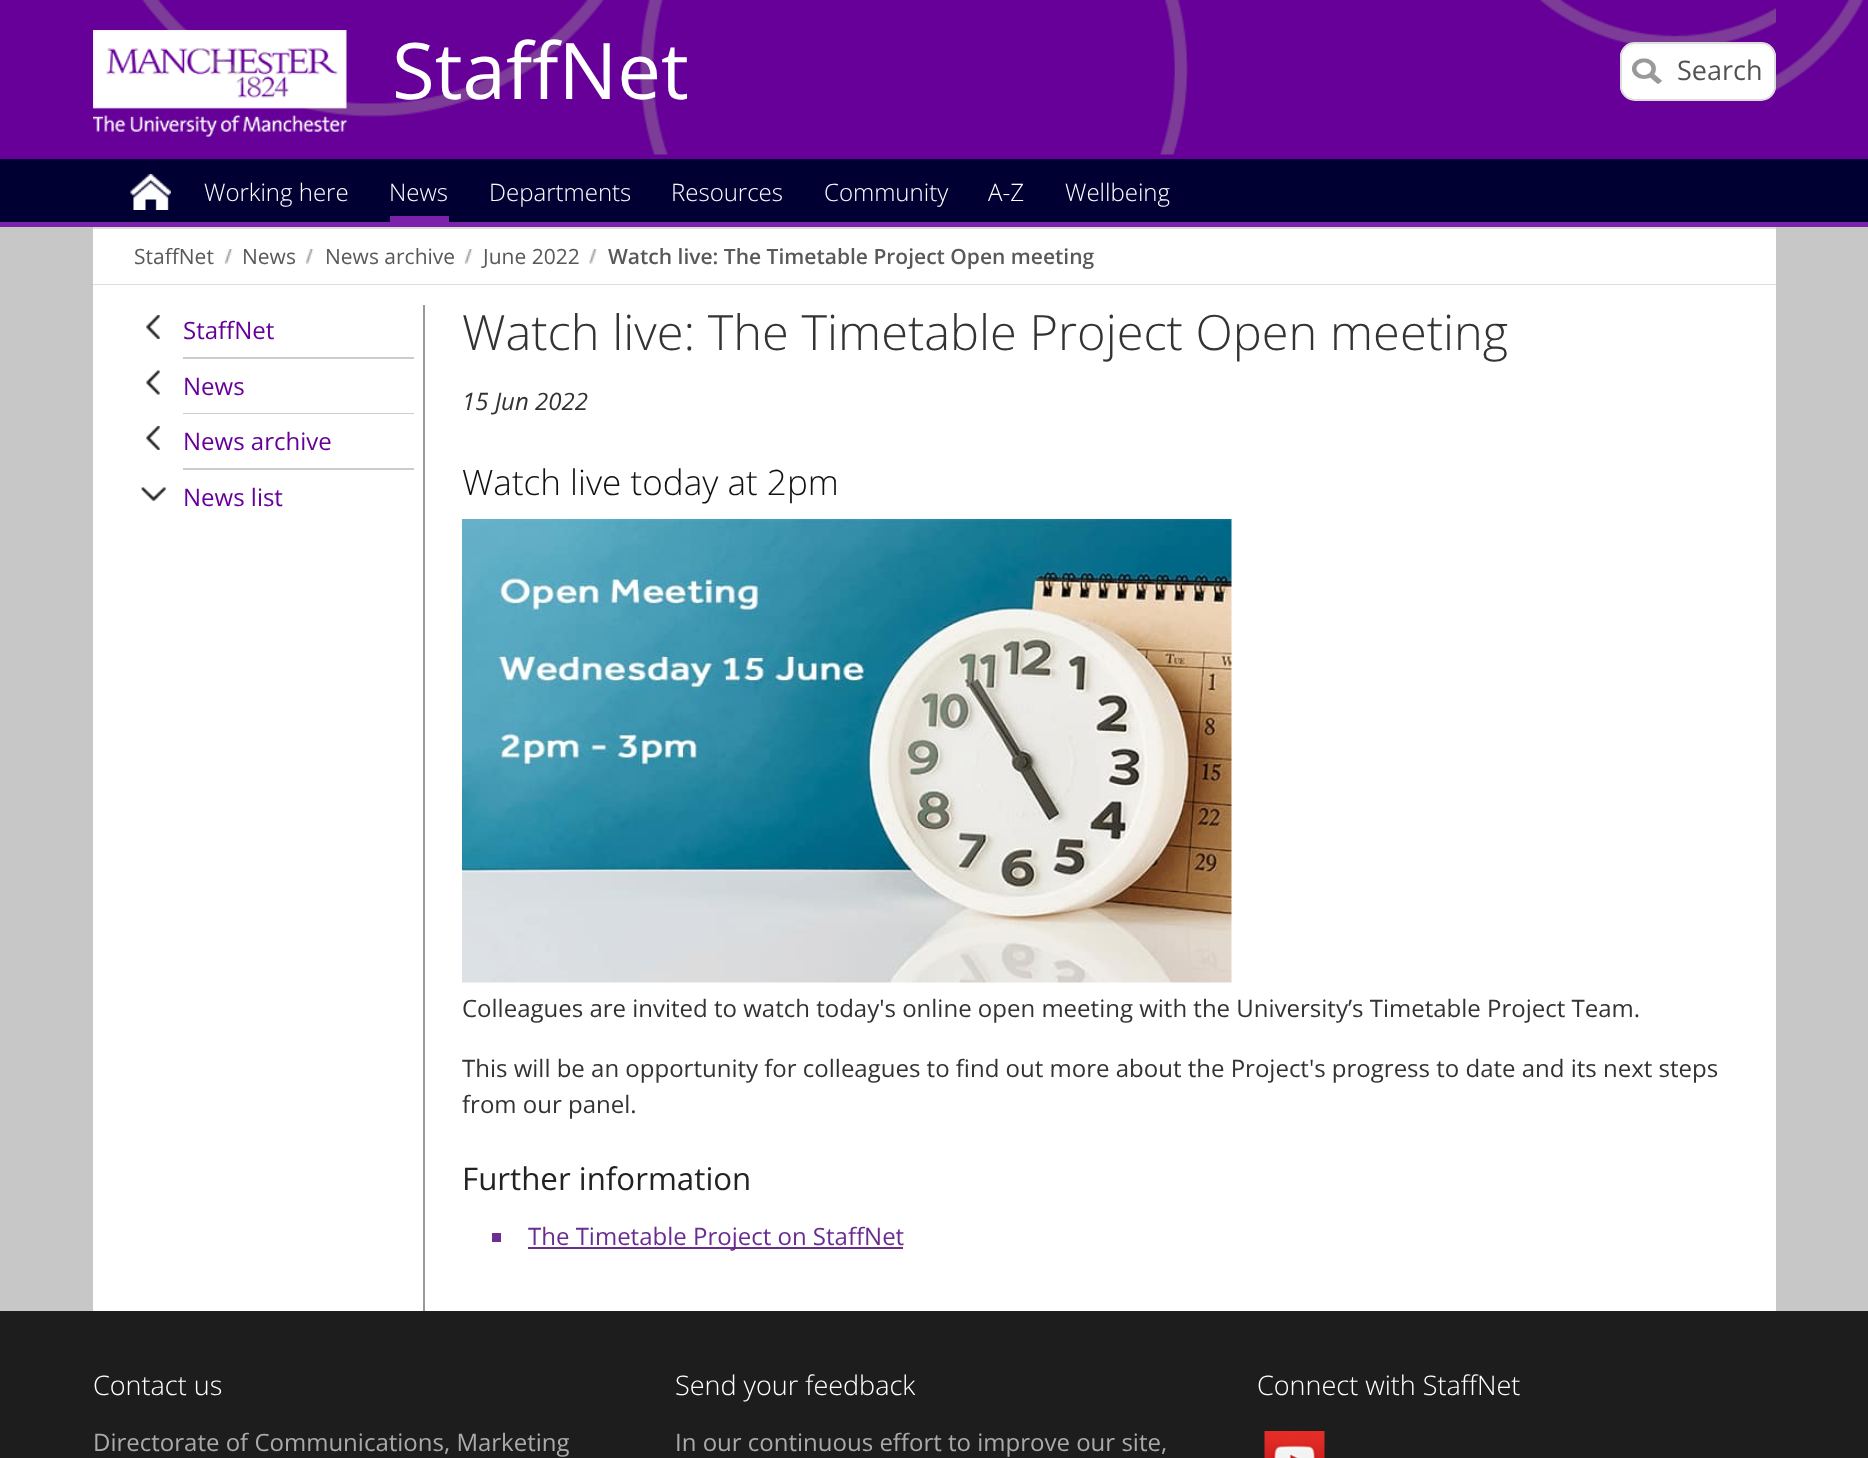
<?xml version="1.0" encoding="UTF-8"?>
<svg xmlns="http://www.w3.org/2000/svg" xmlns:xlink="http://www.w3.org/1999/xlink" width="1868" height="1458">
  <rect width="100%" height="100%" fill="#660099" />
  <image x="1776" y="0" width="88" height="91" xlink:href="image1.png" />
  <image x="142" y="0" width="1634" height="155" xlink:href="image2.png" />
  <image x="93" y="30" width="254" height="107" xlink:href="image3.png" />
  <image x="1620" y="43" width="156" height="58" xlink:href="image4.png" />
  <rect x="1621" y="43" width="154" height="57" rx="14" fill="none" stroke="#dddddd" stroke-width="2" />
  <image x="1632" y="58" width="30" height="26" xlink:href="image5.png" />
  <rect y="159" width="1868" height="63" fill="#000033" />
  <rect y="222" width="1868" height="5" fill="#7b22aa" />
  <image x="130" y="174" width="41" height="36" xlink:href="image6.png" />
  <rect x="390" y="216" width="59" height="6" fill="#7b22aa" />
  <rect y="227" width="1868" height="1084" fill="#c7c7c7" />
  <rect x="93" y="229" width="1683" height="55" fill="#ffffff" />
  <rect x="93" y="227" width="1683" height="2" fill="#dddddd" />
  <rect x="93" y="284" width="1683" height="1" fill="#dddddd" />
  <image x="224" y="249" width="9" height="15" xlink:href="image7.png" />
  <image x="305" y="249" width="9" height="15" xlink:href="image7.png" />
  <image x="464" y="249" width="9" height="15" xlink:href="image7.png" />
  <image x="589" y="249" width="8" height="15" xlink:href="image8.png" />
  <rect x="93" y="285" width="1683" height="1026" fill="#ffffff" />
  <image x="146" y="315" width="14" height="24" xlink:href="image9.png" />
  <rect x="183" y="357" width="231" height="2" fill="#cccccc" />
  <image x="146" y="370" width="14" height="25" xlink:href="image10.png" />
  <rect x="183" y="413" width="231" height="1" fill="#cccccc" />
  <image x="146" y="426" width="14" height="24" xlink:href="image11.png" />
  <rect x="183" y="468" width="231" height="2" fill="#cccccc" />
  <image x="141" y="487" width="25" height="14" xlink:href="image12.png" />
  <rect x="423" y="305" width="2" height="1006" fill="#999999" />
  <image x="462" y="519" width="770" height="464" xlink:href="image13.png" />
  <rect x="492" y="1233" width="9" height="9" fill="#6c2f91" />
  <rect x="528" y="1247" width="375" height="2" fill="#6b2c91" />
  <rect y="1311" width="1868" height="147" fill="#1d1d1d" />
  <image x="1264" y="1431" width="61" height="27" xlink:href="image14.png" />
  <text x="392" y="99" style="font-family: Open Sans; font-size: 78px; fill: #ffffff">StaffNet</text>
  <text x="1677" y="80" style="font-family: Open Sans; font-size: 27px; fill: #525355">Search</text>
  <text x="204" y="201" style="font-family: Open Sans; font-size: 24px; font-weight: 300; fill: #ffffff">Working here</text>
  <text x="389" y="201" style="font-family: Open Sans; font-size: 24px; font-weight: 300; fill: #ffffff">News</text>
  <text x="489" y="201" style="font-family: Open Sans; font-size: 24px; font-weight: 300; fill: #ffffff">Departments</text>
  <text x="671" y="201" style="font-family: Open Sans; font-size: 24px; font-weight: 300; fill: #ffffff">Resources</text>
  <text x="824" y="201" style="font-family: Open Sans; font-size: 24px; font-weight: 300; fill: #ffffff">Community</text>
  <text x="988" y="201" style="font-family: Open Sans; font-size: 24px; font-weight: 300; fill: #ffffff">A-Z</text>
  <text x="1065" y="201" style="font-family: Open Sans; font-size: 24px; font-weight: 300; fill: #ffffff">Wellbeing</text>
  <text x="134" y="264" style="font-family: Open Sans; font-size: 21px; fill: #57595a">StaffNet</text>
  <text x="242" y="264" style="font-family: Open Sans; font-size: 21px; fill: #57595a">News</text>
  <text x="325" y="264" style="font-family: Open Sans; font-size: 21px; fill: #57595a">News archive</text>
  <text x="483" y="264" style="font-family: Open Sans; font-size: 21px; fill: #57595a">June 2022</text>
  <text x="608" y="264" style="font-family: Open Sans; font-size: 21px; font-weight: 600; fill: #57595a">Watch live: The Timetable Project Open meeting</text>
  <text x="183" y="339" style="font-family: Open Sans; font-size: 24px; fill: #660099">StaffNet</text>
  <text x="183" y="395" style="font-family: Open Sans; font-size: 24px; fill: #660099">News</text>
  <text x="183" y="450" style="font-family: Open Sans; font-size: 24px; fill: #660099">News archive</text>
  <text x="183" y="506" style="font-family: Open Sans; font-size: 24px; fill: #660099">News list</text>
  <text x="462" y="350" style="font-family: Open Sans; font-size: 48.75px; font-weight: 300; fill: #333333">Watch live: The Timetable Project Open meeting</text>
  <text x="462" y="410" style="font-family: Open Sans; font-size: 24px; font-style: italic; fill: #333333">15 Jun 2022</text>
  <text x="462" y="495" style="font-family: Open Sans; font-size: 35.1px; font-weight: 300; fill: #111111">Watch live today at 2pm</text>
  <text x="462" y="1017" style="font-family: Open Sans; font-size: 24px; fill: #333333">Colleagues are invited to watch today's online open meeting with the University’s Timetable Project Team.</text>
  <text x="462" y="1077" style="font-family: Open Sans; font-size: 24px; fill: #333333">This will be an opportunity for colleagues to find out more about the Project's progress to date and its next steps</text>
  <text x="462" y="1113" style="font-family: Open Sans; font-size: 24px; fill: #333333">from our panel.</text>
  <text x="462" y="1190" style="font-family: Open Sans; font-size: 31.25px; fill: #222222">Further information</text>
  <text x="528" y="1245" style="font-family: Open Sans; font-size: 24px; fill: #6b2c91">The Timetable Project on StaffNet</text>
  <text x="93" y="1395" style="font-family: Open Sans; font-size: 27px; font-weight: 300; fill: #ffffff">Contact us</text>
  <text x="93" y="1451" style="font-family: Open Sans; font-size: 24px; fill: #aaaaaa">Directorate of Communications, Marketing</text>
  <text x="675" y="1395" style="font-family: Open Sans; font-size: 27px; font-weight: 300; fill: #ffffff">Send your feedback</text>
  <text x="675" y="1451" style="font-family: Open Sans; font-size: 24px; fill: #aaaaaa">In our continuous effort to improve our site,</text>
  <text x="1257" y="1395" style="font-family: Open Sans; font-size: 27px; font-weight: 300; fill: #ffffff">Connect with StaffNet</text>
</svg>
